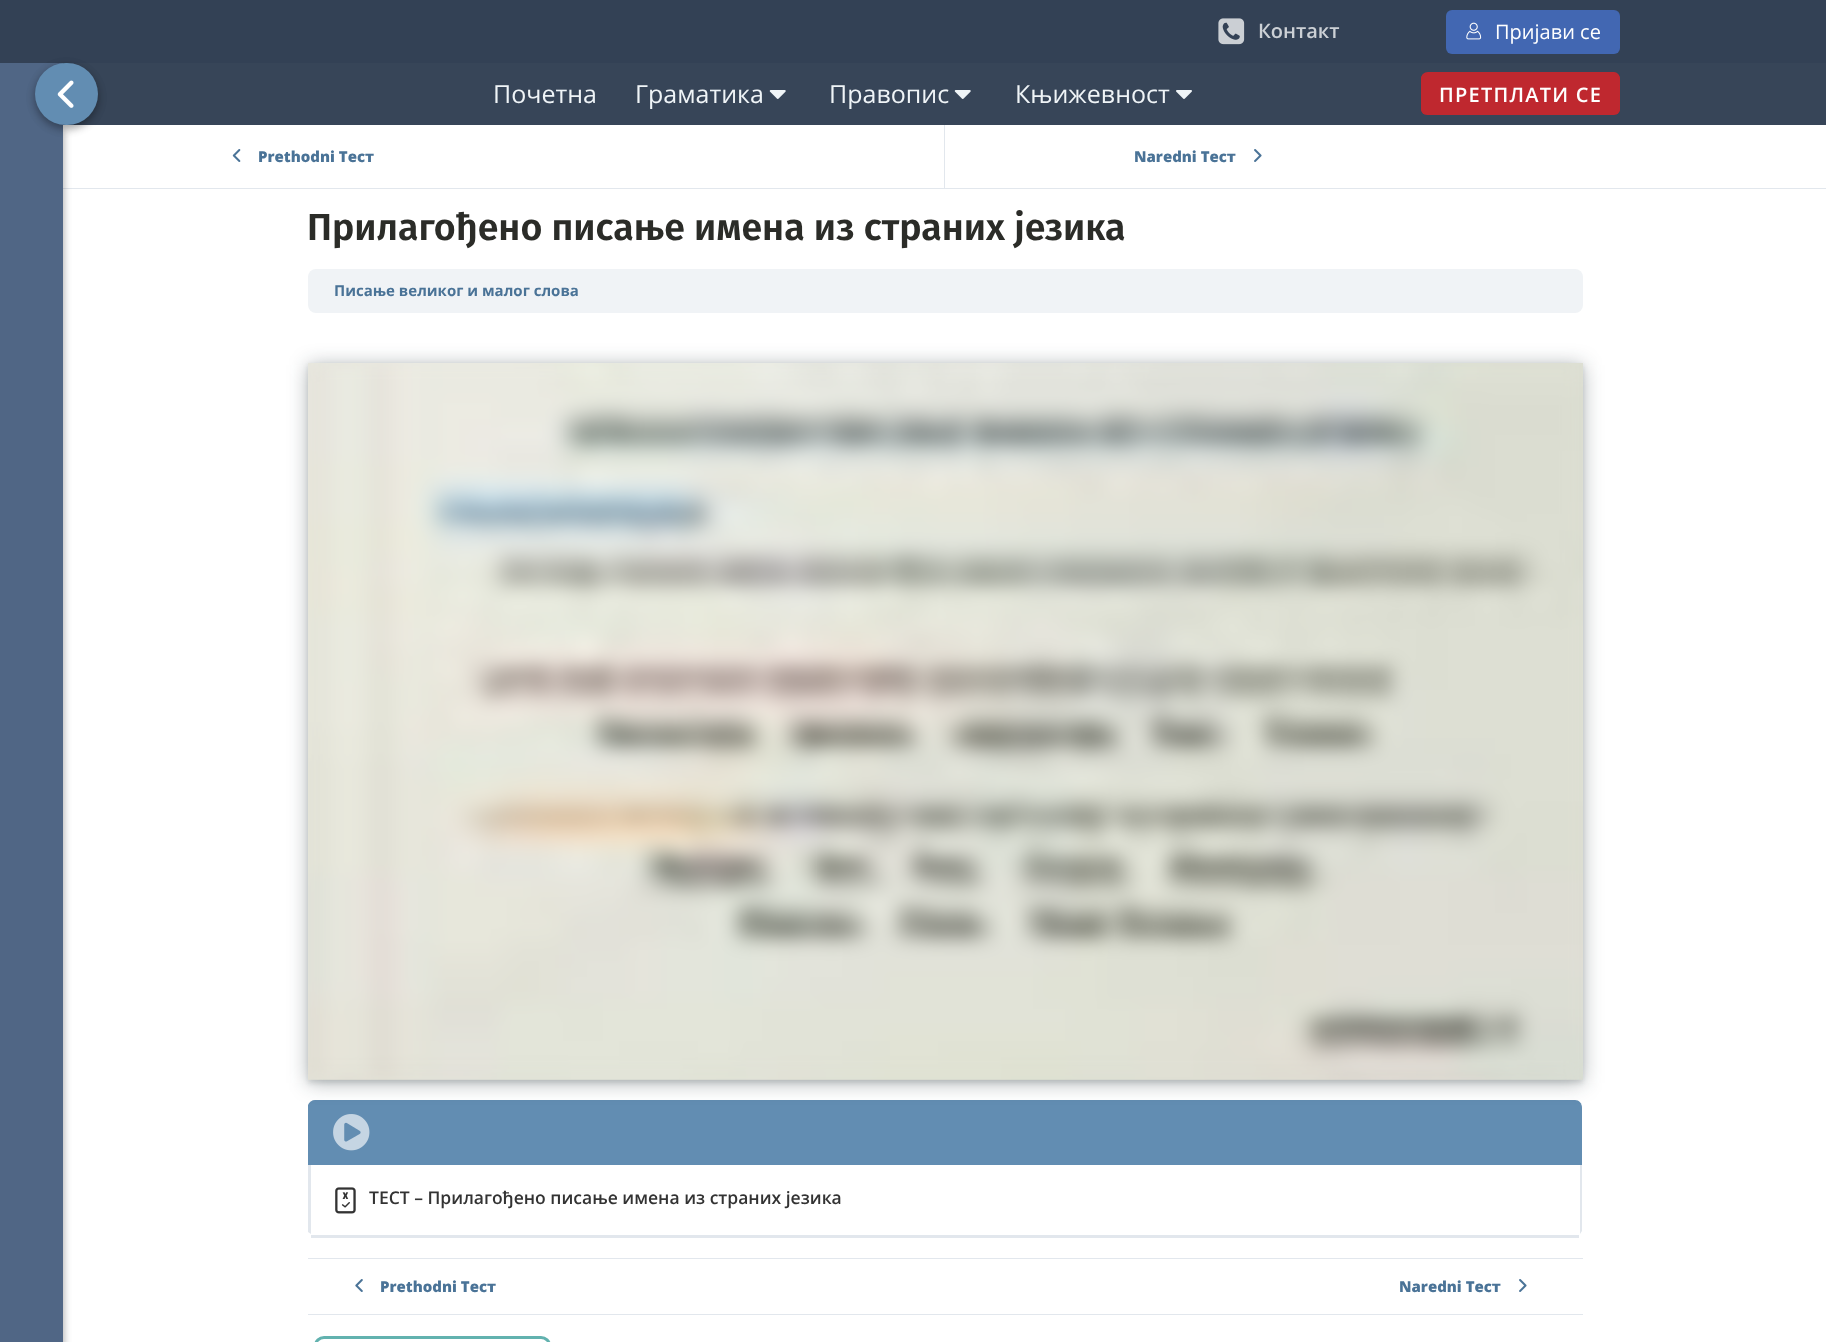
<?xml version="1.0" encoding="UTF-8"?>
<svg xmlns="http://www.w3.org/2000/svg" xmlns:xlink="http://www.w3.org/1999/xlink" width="1826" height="1342">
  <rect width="100%" height="100%" fill="#ffffff" />
  <rect x="63" y="63" width="1763" height="62" fill="#374558" />
  <rect x="63" y="188" width="1763" height="1" fill="#e2e7ed" />
  <rect x="-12" y="129" width="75" height="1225" fill="#000000" fill-opacity="0.23" filter="blur(4px)" />
  <rect x="-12" y="129" width="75" height="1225" fill="#000000" fill-opacity="0.16" filter="blur(4px)" />
  <rect y="63" width="63" height="1279" fill="#506685" />
  <rect width="1826" height="63" fill="#334155" />
  <rect x="35" y="66" width="63" height="63" rx="31.5" fill="#000000" fill-opacity="0.23" filter="blur(4px)" />
  <rect x="35" y="66" width="63" height="63" rx="31.5" fill="#000000" fill-opacity="0.16" filter="blur(4px)" />
  <rect x="35" y="63" width="63" height="62" rx="31" fill="#628db2" />
  <image x="57" y="80" width="17" height="28" xlink:href="image1.png" />
  <image x="1218" y="18" width="27" height="27" xlink:href="image2.png" />
  <rect x="1446" y="10" width="174" height="44" rx="6" fill="#4267b2" />
  <image x="1466" y="22" width="16" height="18" xlink:href="image3.png" />
  <image x="769" y="90" width="17" height="9" xlink:href="image4.png" />
  <image x="954" y="90" width="17" height="9" xlink:href="image4.png" />
  <image x="1176" y="90" width="16" height="9" xlink:href="image5.png" />
  <rect x="1421" y="73" width="199" height="42" rx="6" fill="#bf282f" />
  <path d="M 1428 72 h 186 c 3 0 6 3 6 7 v 30 c 0 3 -3 6 -6 6 h -186 c -4 0 -7 -3 -7 -6 v -30 c 0 -4 3 -7 7 -7 z m 0 2 h 186 c 3 0 5 2 5 5 v 30 c 0 3 -2 6 -5 6 h -186 c -3 0 -6 -3 -6 -6 v -30 c 0 -3 3 -5 6 -5 z" fill="#bf282f" fill-rule="evenodd" />
  <rect x="944" y="125" width="1" height="63" fill="#e2e7ed" />
  <image x="232" y="149" width="9" height="13" xlink:href="image6.png" />
  <image x="1254" y="149" width="8" height="13" xlink:href="image7.png" />
  <rect x="308" y="269" width="1275" height="44" rx="8" fill="#f0f3f6" />
  <path d="M 315 1100 c -3 0 -6 2 -7 5 v 60 h 1274 v -57 c 0 -5 -3 -8 -7 -8 z" fill="#628db2" />
  <rect x="308" y="365" width="1275" height="718" fill="#0e1e25" fill-opacity="0.32" filter="blur(10px)" />
  <rect x="308" y="365" width="1275" height="718" fill="#0e1e25" fill-opacity="0.12" filter="blur(2.5px)" />
  <image x="308" y="363" width="1275" height="717" xlink:href="image8.png" />
  <rect x="311" y="1235" width="1268" height="3" fill="#e2e7ed" />
  <image x="333" y="1114" width="37" height="37" xlink:href="image9.png" />
  <path d="M 1580 1165 h 2 v 66 l -2 3 z" fill="#e2e7ed" />
  <path d="M 308 1165 h 3 v 69 l -3 -2 z" fill="#e2e7ed" />
  <image x="335" y="1187" width="21" height="27" xlink:href="image10.png" />
  <rect x="308" y="1258" width="1275" height="1" fill="#e2e7ed" />
  <image x="355" y="1279" width="8" height="13" xlink:href="image11.png" />
  <image x="1519" y="1279" width="8" height="13" xlink:href="image7.png" />
  <rect x="308" y="1314" width="1275" height="1" fill="#e2e7ed" />
  <rect x="315.5" y="1337.5" width="234" height="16" rx="8.5" fill="none" stroke="#62b2af" stroke-width="3" />
  <text x="1258" y="38" style="font-family: Open Sans; font-size: 20px; font-weight: 600; fill: #ccd0d5">Контакт</text>
  <text x="1495" y="39" style="font-family: Open Sans; font-size: 20px; fill: #ffffff">Пријави се</text>
  <text x="493" y="103" style="font-family: Open Sans; font-size: 25px; fill: #eff4f7">Почетна</text>
  <text x="635" y="103" style="font-family: Open Sans; font-size: 25px; fill: #eff4f7">Граматика</text>
  <text x="829" y="103" style="font-family: Open Sans; font-size: 25px; fill: #eff4f7">Правопис</text>
  <text x="1015" y="103" style="font-family: Open Sans; font-size: 25px; fill: #eff4f7">Књижевност</text>
  <text x="1439" y="102" style="font-family: Open Sans; font-size: 20px; font-weight: 600; letter-spacing: 1.25px; fill: #ffffff">ПРЕТПЛАТИ СЕ</text>
  <text x="258" y="162" style="font-family: Open Sans; font-size: 15px; font-weight: 800; fill: #4a7397">Prethodni Тест</text>
  <text x="1134" y="162" style="font-family: Open Sans; font-size: 15px; font-weight: 800; fill: #4a7397">Naredni Тест</text>
  <text x="307" y="240" style="font-family: Fira Sans; font-size: 37.5px; font-weight: 600; fill: #2b2c28">Прилагођено писање имена из страних језика</text>
  <text x="334" y="296" style="font-family: Open Sans; font-size: 15px; font-weight: bold; fill: #4a7397">Писање великог и малог слова</text>
  <text x="369" y="1204" style="font-family: Open Sans; font-size: 17.5px; font-weight: 600; fill: #333333">ТЕСТ – Прилагођено писање имена из страних језика</text>
  <text x="380" y="1292" style="font-family: Open Sans; font-size: 15px; font-weight: 800; fill: #4a7397">Prethodni Тест</text>
  <text x="1399" y="1292" style="font-family: Open Sans; font-size: 15px; font-weight: 800; fill: #4a7397">Naredni Тест</text>
</svg>
